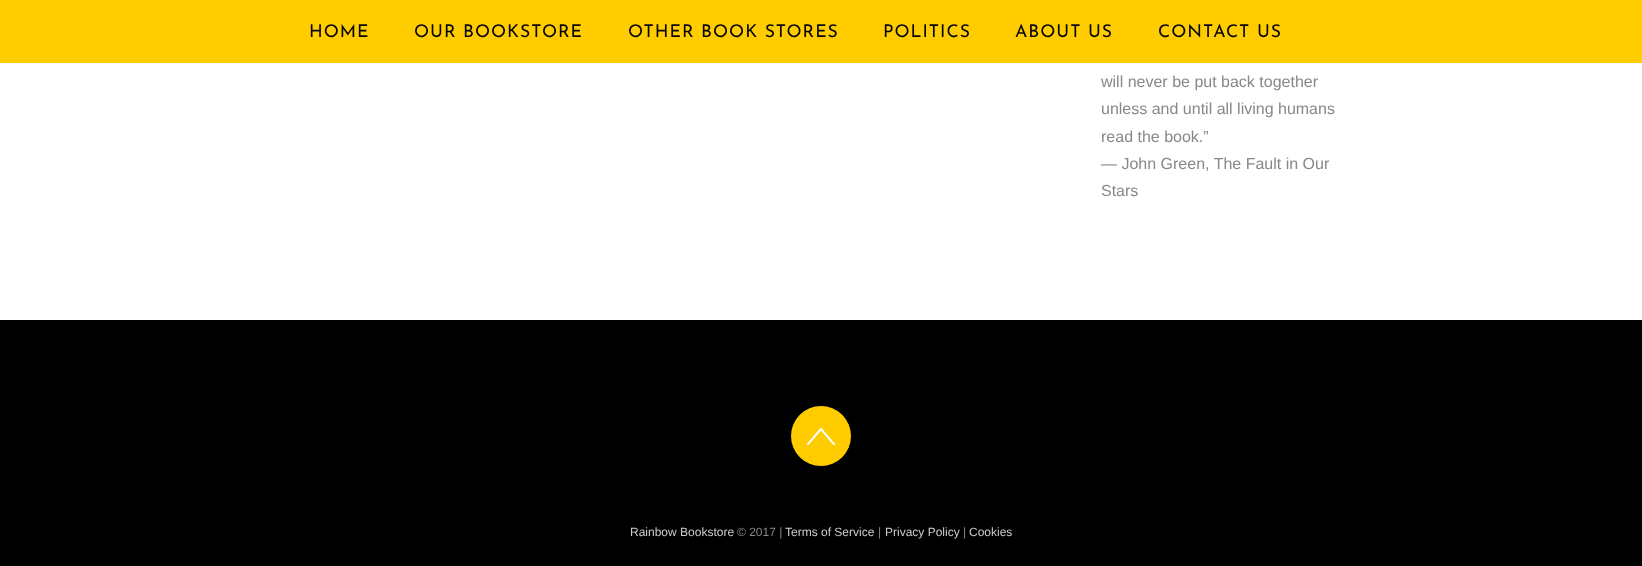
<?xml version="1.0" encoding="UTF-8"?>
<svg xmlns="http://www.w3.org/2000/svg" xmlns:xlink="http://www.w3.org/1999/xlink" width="1642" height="566">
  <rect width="100%" height="100%" fill="#ffffff" />
  <rect width="1642" height="63" fill="#ffcc00" />
  <rect y="320" width="1642" height="246" fill="#000000" />
  <circle cx="821" cy="436" r="30" fill="#ffcc00" />
  <image x="806" y="427" width="30" height="18" xlink:href="image1.png" />
  <text x="309" y="37" style="font-family: Josefin Sans; font-size: 17.6px; font-weight: 100; letter-spacing: 1px; fill: #050505">HOME</text>
  <text x="414" y="37" style="font-family: Josefin Sans; font-size: 17.6px; font-weight: 100; letter-spacing: 1px; fill: #050505">OUR BOOKSTORE</text>
  <text x="628" y="37" style="font-family: Josefin Sans; font-size: 17.6px; font-weight: 100; letter-spacing: 1px; fill: #050505">OTHER BOOK STORES</text>
  <text x="883" y="37" style="font-family: Josefin Sans; font-size: 17.6px; font-weight: 100; letter-spacing: 1px; fill: #050505">POLITICS</text>
  <text x="1015" y="37" style="font-family: Josefin Sans; font-size: 17.6px; font-weight: 100; letter-spacing: 1px; fill: #050505">ABOUT US</text>
  <text x="1158" y="37" style="font-family: Josefin Sans; font-size: 17.6px; font-weight: 100; letter-spacing: 1px; fill: #050505">CONTACT US</text>
  <text x="1101" y="87" style="font-family: Liberation Sans; font-size: 16px; fill: #888888">will never be put back together</text>
  <text x="1101" y="114" style="font-family: Liberation Sans; font-size: 16px; fill: #888888">unless and until all living humans</text>
  <text x="1101" y="142" style="font-family: Liberation Sans; font-size: 16px; fill: #888888">read the book.”</text>
  <text x="1101" y="169" style="font-family: Liberation Sans; font-size: 16px; fill: #888888">― John Green, The Fault in Our</text>
  <text x="1101" y="196" style="font-family: Liberation Sans; font-size: 16px; fill: #888888">Stars</text>
  <text x="630" y="536" style="font-family: Liberation Sans; font-size: 12px; fill: #cccccc">Rainbow Bookstore</text>
  <text x="737" y="536" style="font-family: Liberation Sans; font-size: 12px; fill: #888888">© 2017 |</text>
  <text x="785" y="536" style="font-family: Liberation Sans; font-size: 12px; fill: #cccccc">Terms of Service</text>
  <text x="878" y="536" style="font-family: Liberation Sans; font-size: 12px; fill: #888888">|</text>
  <text x="885" y="536" style="font-family: Liberation Sans; font-size: 12px; fill: #cccccc">Privacy Policy</text>
  <text x="963" y="536" style="font-family: Liberation Sans; font-size: 12px; fill: #888888">|</text>
  <text x="969" y="536" style="font-family: Liberation Sans; font-size: 12px; fill: #cccccc">Cookies</text>
</svg>
